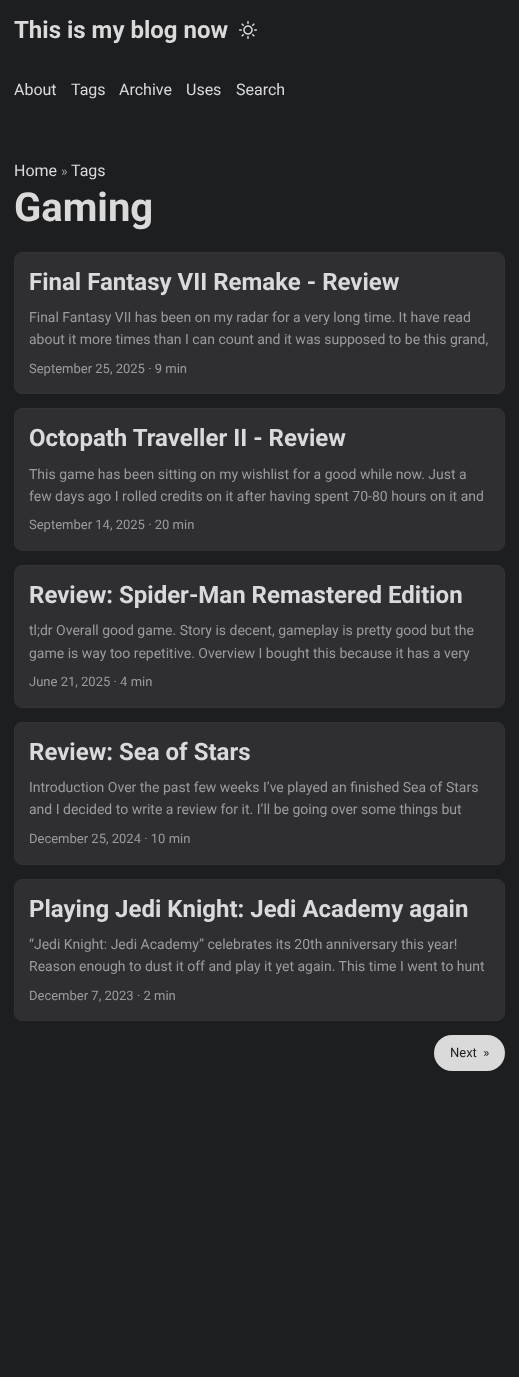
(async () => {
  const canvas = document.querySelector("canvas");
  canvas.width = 519;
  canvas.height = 1377;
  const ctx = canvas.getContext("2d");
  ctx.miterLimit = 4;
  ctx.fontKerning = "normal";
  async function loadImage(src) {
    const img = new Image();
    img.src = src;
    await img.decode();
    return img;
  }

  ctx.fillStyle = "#1d1e20";
  ctx.fillRect(0, 0, 519, 1377);
  ctx.drawImage(await loadImage("img/1.png"), 239, 21, 18, 18);
  ctx.fillStyle = "#2e2e33";
  ctx.beginPath();
  ctx.roundRect(14.5, 252.5, 490, 141, 7.5);
  ctx.fill();
  ctx.strokeStyle = "#333333";
  ctx.stroke();
  ctx.beginPath();
  ctx.roundRect(14.5, 408.5, 490, 142, 7.5);
  ctx.fill();
  ctx.stroke();
  ctx.beginPath();
  ctx.roundRect(14.5, 565.5, 490, 142, 7.5);
  ctx.fill();
  ctx.stroke();
  ctx.beginPath();
  ctx.roundRect(14.5, 722.5, 490, 142, 7.5);
  ctx.fill();
  ctx.stroke();
  ctx.beginPath();
  ctx.roundRect(14.5, 879.5, 490, 141, 7.5);
  ctx.fill();
  ctx.stroke();
  ctx.fillStyle = "#dadadb";
  ctx.beginPath();
  ctx.roundRect(434, 1035, 71, 36, 18);
  ctx.fill();
  ctx.font = "bold 24px Roboto";
  ctx.fillText("This is my blog now", 14, 38);
  ctx.font = "16px Roboto";
  for (const [text, x, y] of [
    ["About", 14, 95],
    ["Tags", 71, 95],
    ["Archive", 119, 95],
    ["Uses", 186, 95],
    ["Search", 236, 95],
    ["Home", 14, 176],
  ]) {
    ctx.fillText(text, x, y);
  }
  ctx.font = "14px Roboto";
  ctx.fillStyle = "#9b9c9d";
  ctx.fillText("»", 61, 176);
  ctx.font = "16px Roboto";
  ctx.fillStyle = "#dadadb";
  ctx.fillText("Tags", 71, 176);
  ctx.font = "bold 40px Roboto";
  ctx.fillText("Gaming", 14, 221);
  ctx.font = "bold 24px Roboto";
  ctx.fillText("Final Fantasy VII Remake - Review", 29, 290);
  ctx.font = "14px Roboto";
  ctx.fillStyle = "#9b9c9d";
  ctx.fillText("Final Fantasy VII has been on my radar for a very long time. It have read", 29, 322);
  ctx.fillText("about it more times than I can count and it was supposed to be this grand,", 29, 344);
  ctx.font = "13px Roboto";
  ctx.fillText("September 25, 2025 · 9 min", 29, 373);
  ctx.font = "bold 24px Roboto";
  ctx.fillStyle = "#dadadb";
  ctx.fillText("Octopath Traveller II - Review", 29, 446);
  ctx.font = "14px Roboto";
  ctx.fillStyle = "#9b9c9d";
  ctx.fillText("This game has been sitting on my wishlist for a good while now. Just a", 29, 479);
  ctx.fillText("few days ago I rolled credits on it after having spent 70-80 hours on it and", 29, 501);
  ctx.font = "13px Roboto";
  ctx.fillText("September 14, 2025 · 20 min", 29, 529);
  ctx.font = "bold 24px Roboto";
  ctx.fillStyle = "#dadadb";
  ctx.fillText("Review: Spider-Man Remastered Edition", 29, 603);
  ctx.font = "14px Roboto";
  ctx.fillStyle = "#9b9c9d";
  ctx.fillText("tl;dr Overall good game. Story is decent, gameplay is pretty good but the", 29, 635);
  ctx.fillText("game is way too repetitive. Overview I bought this because it has a very", 29, 658);
  ctx.font = "13px Roboto";
  ctx.fillText("June 21, 2025 · 4 min", 29, 686);
  ctx.font = "bold 24px Roboto";
  ctx.fillStyle = "#dadadb";
  ctx.fillText("Review: Sea of Stars", 29, 760);
  ctx.font = "14px Roboto";
  ctx.fillStyle = "#9b9c9d";
  ctx.fillText("Introduction Over the past few weeks I’ve played an finished Sea of Stars", 29, 792);
  ctx.fillText("and I decided to write a review for it. I’ll be going over some things but", 29, 814);
  ctx.font = "13px Roboto";
  ctx.fillText("December 25, 2024 · 10 min", 29, 843);
  ctx.font = "bold 24px Roboto";
  ctx.fillStyle = "#dadadb";
  ctx.fillText("Playing Jedi Knight: Jedi Academy again", 29, 917);
  ctx.font = "14px Roboto";
  ctx.fillStyle = "#9b9c9d";
  ctx.fillText("“Jedi Knight: Jedi Academy” celebrates its 20th anniversary this year!", 29, 949);
  ctx.fillText("Reason enough to dust it off and play it yet again. This time I went to hunt", 29, 971);
  ctx.font = "13px Roboto";
  ctx.fillText("December 7, 2023 · 2 min", 29, 1000);
  ctx.fillStyle = "#1d1e20";
  ctx.fillText("Next  »", 450, 1057);
})();
